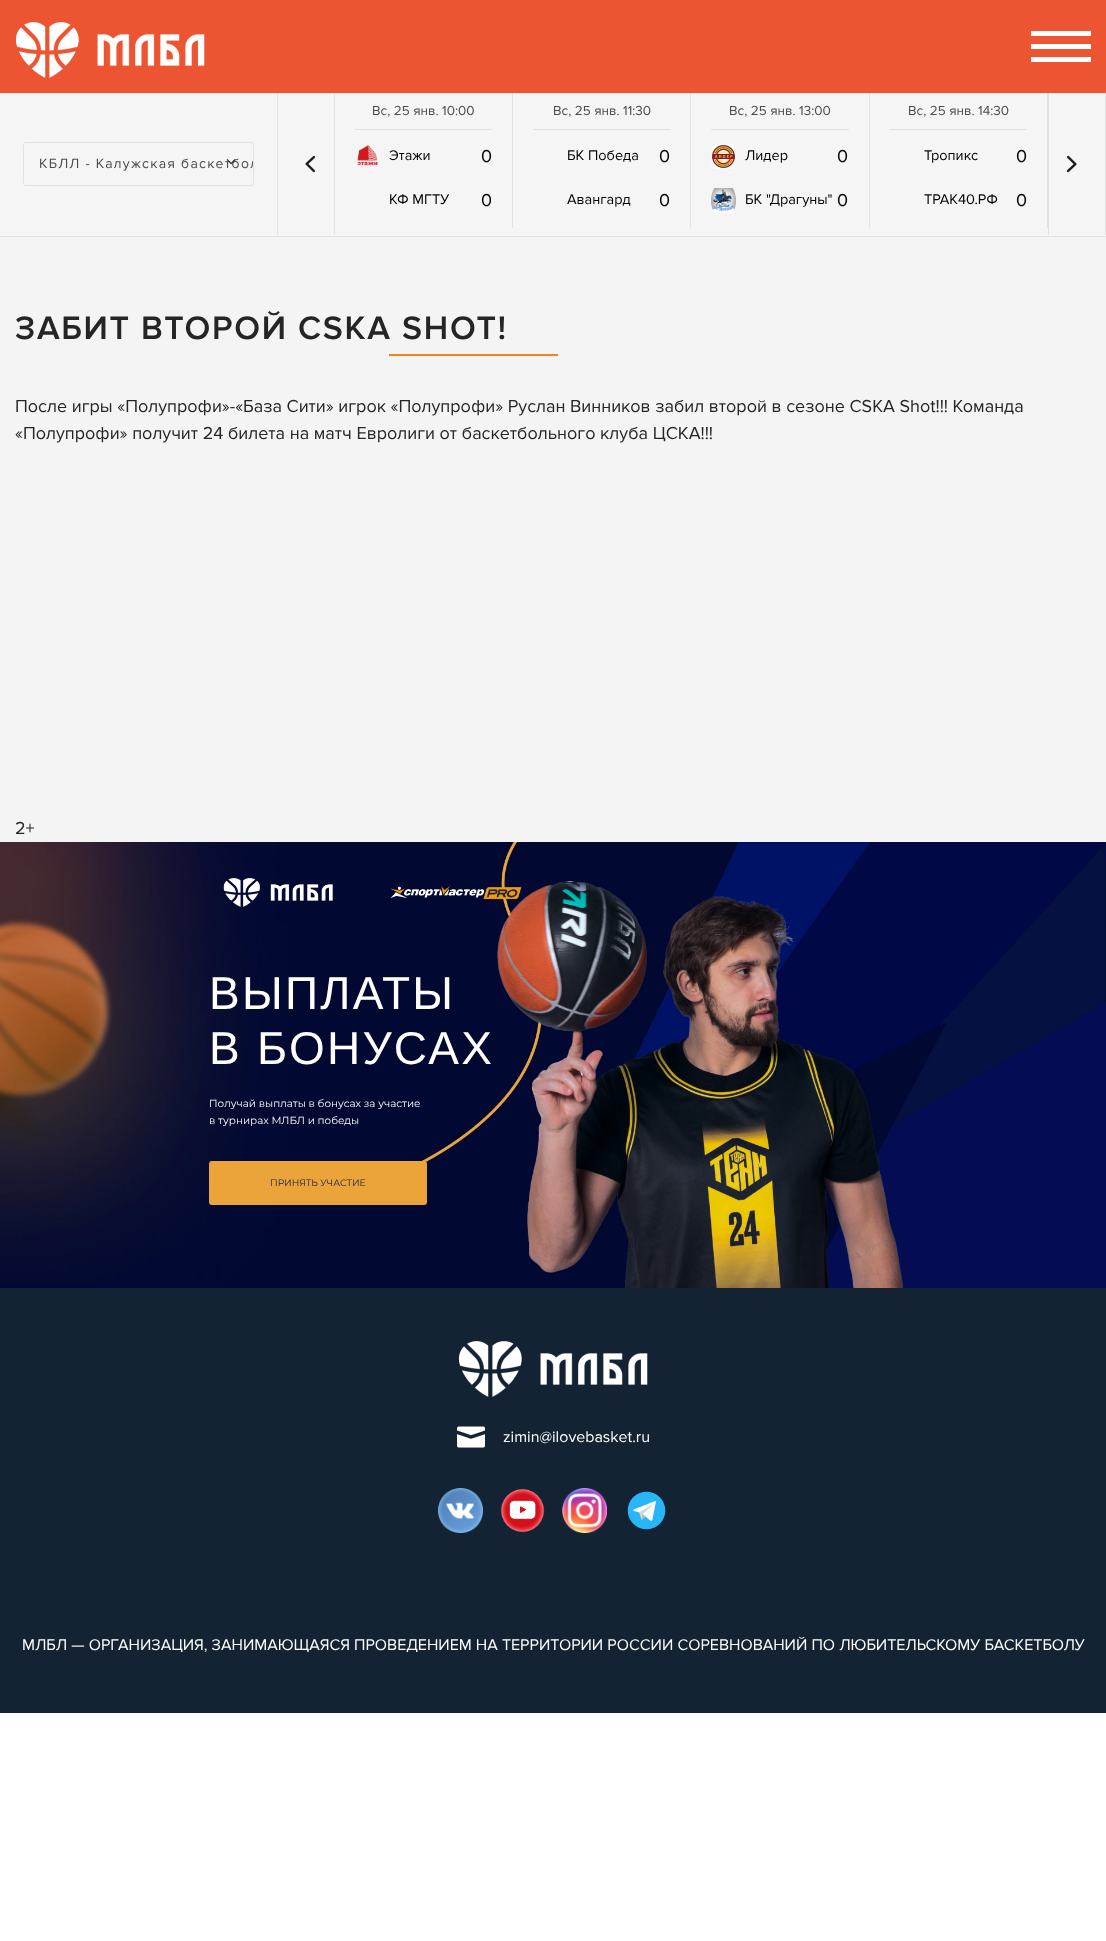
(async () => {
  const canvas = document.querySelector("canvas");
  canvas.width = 1106;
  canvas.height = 1941;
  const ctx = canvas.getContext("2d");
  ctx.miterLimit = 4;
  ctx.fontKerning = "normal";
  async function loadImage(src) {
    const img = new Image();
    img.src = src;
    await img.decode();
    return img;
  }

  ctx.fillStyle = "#ffffff";
  ctx.fillRect(0, 0, 1106, 1941);
  ctx.fillStyle = "#ed5431";
  ctx.fillRect(0, 0, 1106, 93);
  ctx.drawImage(await loadImage("img/1.png"), 15, 22, 190, 56);
  for (const [x, y, w, h, color] of [
    [1031, 31, 60, 5, "#ffffff"],
    [1031, 44, 60, 5, "#ffffff"],
    [1031, 57, 60, 5, "#ffffff"],
    [0, 93, 1106, 143, "#f5f5f6"],
    [0, 236, 1106, 1, "#e3e3e3"],
  ]) {
    ctx.fillStyle = color;
    ctx.fillRect(x, y, w, h);
  }
  ctx.beginPath();
  ctx.roundRect(23.5, 142.5, 230, 43, 2.5);
  ctx.strokeStyle = "#e3e3e3";
  ctx.stroke();
  for (const [x, y, w, h, color] of [
    [1105, 93, 1, 142, "#e3e3e3"],
    [277, 93, 1, 142, "#e3e3e3"],
    [1048, 93, 1, 142, "#e3e3e3"],
    [334, 93, 1, 142, "#e3e3e3"],
  ]) {
    ctx.fillStyle = color;
    ctx.fillRect(x, y, w, h);
  }
  ctx.drawImage(await loadImage("img/3.png"), 305, 155, 11, 18);
  ctx.fillRect(512, 93, 1, 135);
  ctx.fillRect(355, 129, 137, 1);
  ctx.drawImage(await loadImage("img/4.png"), 357, 145, 21, 21);
  for (const [x, y, w, h, color] of [
    [690, 93, 1, 135, "#e3e3e3"],
    [533, 129, 137, 1, "#e3e3e3"],
    [869, 93, 1, 135, "#e3e3e3"],
    [711, 129, 138, 1, "#e3e3e3"],
  ]) {
    ctx.fillStyle = color;
    ctx.fillRect(x, y, w, h);
  }
  ctx.drawImage(await loadImage("img/5.png"), 711, 144, 25, 25);
  ctx.drawImage(await loadImage("img/6.png"), 711, 188, 25, 25);
  ctx.fillRect(1047, 93, 1, 135);
  ctx.fillRect(890, 129, 137, 1);
  ctx.drawImage(await loadImage("img/7.png"), 1066, 155, 11, 18);
  ctx.fillStyle = "#f4f4f4";
  ctx.fillRect(0, 237, 1106, 605);
  ctx.fillStyle = "#f1841f";
  ctx.fillRect(389, 354, 169, 2);
  ctx.drawImage(await loadImage("img/8.png"), 0, 842, 1106, 446);
  ctx.drawImage(await loadImage("img/9.png"), 223, 878, 111, 29);
  ctx.drawImage(await loadImage("img/10.png"), 390, 886, 132, 14);
  ctx.fillStyle = "#eba43a";
  ctx.beginPath();
  ctx.roundRect(209, 1161, 218, 44, 3);
  ctx.fill();
  ctx.fillStyle = "#142333";
  ctx.fillRect(0, 1288, 1106, 425);
  ctx.drawImage(await loadImage("img/11.png"), 458, 1341, 190, 56);
  ctx.drawImage(await loadImage("img/12.png"), 457, 1426, 28, 22);
  ctx.drawImage(await loadImage("img/13.png"), 438, 1488, 45, 45);
  ctx.drawImage(await loadImage("img/14.png"), 500, 1488, 45, 45);
  ctx.drawImage(await loadImage("img/15.png"), 562, 1488, 45, 45);
  ctx.drawImage(await loadImage("img/16.png"), 627, 1491, 39, 39);
  ctx.save();
  ctx.beginPath();
  ctx.roundRect(24, 143, 229, 42, 2);
  ctx.clip();
  ctx.letterSpacing = "1.25px";
  ctx.font = "14px Proxima Nova";
  ctx.fillStyle = "#4c4c4c";
  ctx.fillText("КБЛЛ - Калужская баскетбол", 39, 168);
  ctx.restore();
  ctx.drawImage(await loadImage("img/2.png"), 226, 159, 10, 6);
  ctx.font = "13.5px Proxima Nova";
  ctx.fillStyle = "#4c4c4c";
  ctx.fillText("Вс, 25 янв. 10:00", 372, 115);
  ctx.font = "14.5px Proxima Nova";
  ctx.fillStyle = "#000000";
  ctx.fillText("Этажи", 389, 160);
  ctx.font = "18px Proxima Nova";
  ctx.fillText("0", 481, 162);
  ctx.font = "14.5px Proxima Nova";
  ctx.fillText("КФ МГТУ", 389, 204);
  ctx.font = "18px Proxima Nova";
  ctx.fillText("0", 481, 206);
  ctx.font = "13.5px Proxima Nova";
  ctx.fillStyle = "#4c4c4c";
  ctx.fillText("Вс, 25 янв. 11:30", 553, 115);
  ctx.font = "14.5px Proxima Nova";
  ctx.fillStyle = "#000000";
  ctx.fillText("БК Победа", 567, 160);
  ctx.font = "18px Proxima Nova";
  ctx.fillText("0", 659, 162);
  ctx.font = "14.5px Proxima Nova";
  ctx.fillText("Авангард", 567, 204);
  ctx.font = "18px Proxima Nova";
  ctx.fillText("0", 659, 206);
  ctx.font = "13.5px Proxima Nova";
  ctx.fillStyle = "#4c4c4c";
  ctx.fillText("Вс, 25 янв. 13:00", 729, 115);
  ctx.font = "14.5px Proxima Nova";
  ctx.fillStyle = "#000000";
  ctx.fillText("Лидер", 745, 160);
  ctx.font = "18px Proxima Nova";
  ctx.fillText("0", 837, 162);
  ctx.font = "14.5px Proxima Nova";
  ctx.fillText("БК \"Драгуны\"", 745, 204);
  ctx.font = "18px Proxima Nova";
  ctx.fillText("0", 837, 206);
  ctx.font = "13.5px Proxima Nova";
  ctx.fillStyle = "#4c4c4c";
  ctx.fillText("Вс, 25 янв. 14:30", 908, 115);
  ctx.font = "14.5px Proxima Nova";
  ctx.fillStyle = "#000000";
  ctx.fillText("Тропикс", 924, 160);
  ctx.font = "18px Proxima Nova";
  ctx.fillText("0", 1016, 162);
  ctx.font = "14.5px Proxima Nova";
  ctx.fillText("ТРАК40.РФ", 924, 204);
  ctx.font = "18px Proxima Nova";
  ctx.fillText("0", 1016, 206);
  ctx.letterSpacing = "1.7px";
  ctx.font = "600 33.75px Proxima Nova";
  ctx.fillStyle = "#252525";
  ctx.fillText("ЗАБИТ ВТОРОЙ CSKA SHOT!", 15, 339);
  ctx.letterSpacing = "0px";
  ctx.font = "18px Proxima Nova";
  for (const [text, x, y] of [
    ["После игры «Полупрофи»-«База Сити» игрок «Полупрофи» Руслан Винников забил второй в сезоне CSKA Shot!!! Команда", 15, 412],
    ["«Полупрофи» получит 24 билета на матч Евролиги от баскетбольного клуба ЦСКА!!!", 15, 439],
    ["2+", 15, 834],
  ]) {
    ctx.fillText(text, x, y);
  }
  ctx.letterSpacing = "2.25px";
  ctx.font = "46px Liberation Sans";
  ctx.fillStyle = "#ffffff";
  ctx.fillText("ВЫПЛАТЫ", 209, 1009);
  ctx.fillText("В БОНУСАХ", 209, 1064);
  ctx.letterSpacing = "0px";
  ctx.font = "10.4px Montserrat";
  ctx.fillText("Получай выплаты в бонусах за участие", 209, 1107);
  ctx.fillText("в турнирах МЛБЛ и победы", 209, 1124);
  ctx.font = "9.25px Montserrat";
  ctx.fillStyle = "#121d4b";
  ctx.fillText("ПРИНЯТЬ УЧАСТИЕ", 270, 1186);
  ctx.font = "16px Proxima Nova";
  ctx.fillStyle = "#ffffff";
  ctx.fillText("zimin@ilovebasket.ru", 503, 1442);
  ctx.fillText("МЛБЛ — ОРГАНИЗАЦИЯ, ЗАНИМАЮЩАЯСЯ ПРОВЕДЕНИЕМ НА ТЕРРИТОРИИ РОССИИ СОРЕВНОВАНИЙ ПО ЛЮБИТЕЛЬСКОМУ БАСКЕТБОЛУ", 22, 1650);
})();
